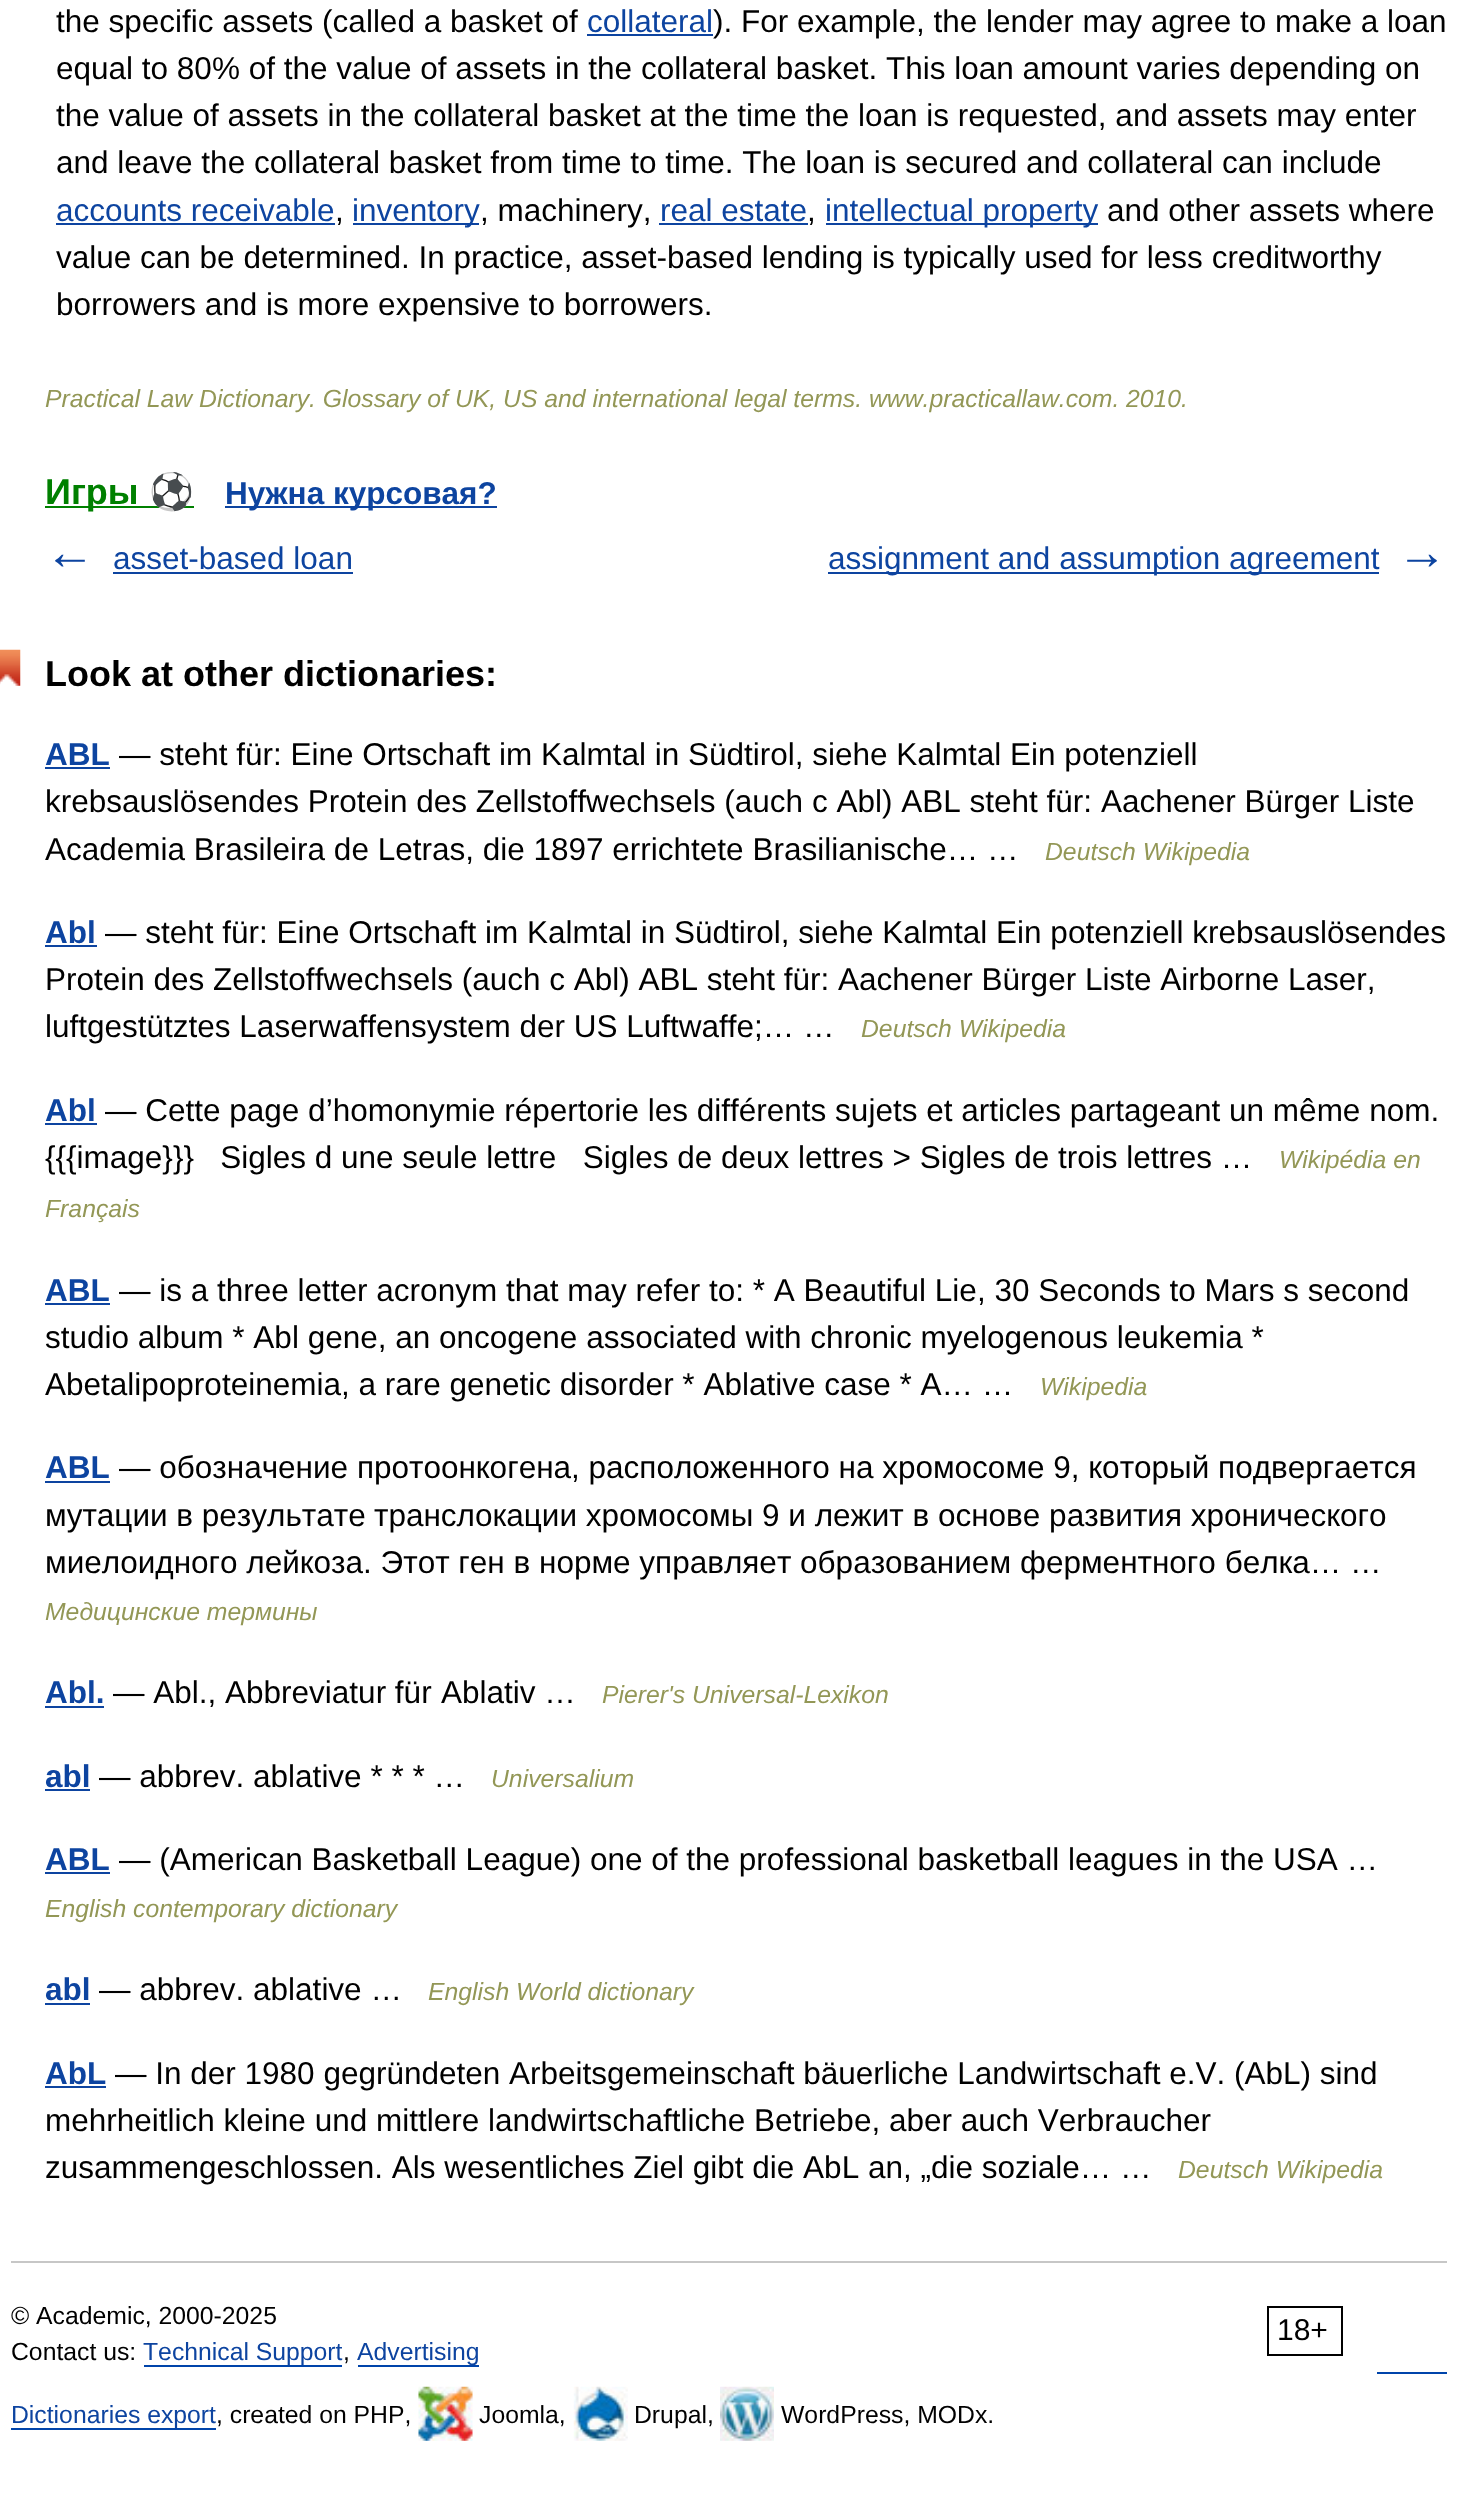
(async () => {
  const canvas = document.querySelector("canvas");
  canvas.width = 1458;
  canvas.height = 2519;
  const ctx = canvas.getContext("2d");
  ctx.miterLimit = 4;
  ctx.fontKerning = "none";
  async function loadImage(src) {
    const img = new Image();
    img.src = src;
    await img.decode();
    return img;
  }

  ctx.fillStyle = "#ffffff";
  ctx.fillRect(0, 0, 1458, 2519);
  for (const [x, y, w, h, color] of [
    [587, 34, 126, 2, "#0d44a0"],
    [56, 223, 279, 2, "#0d44a0"],
    [353, 223, 126, 2, "#0d44a0"],
    [659, 223, 149, 2, "#0d44a0"],
    [826, 223, 272, 2, "#0d44a0"],
    [45, 506, 149, 2, "#008000"],
    [225, 506, 272, 2, "#0d44a0"],
    [113, 572, 240, 2, "#0d44a0"],
    [828, 572, 551, 2, "#0d44a0"],
  ]) {
    ctx.fillStyle = color;
    ctx.fillRect(x, y, w, h);
  }
  ctx.drawImage(await loadImage("img/1.png"), 0, 649, 21, 37);
  for (const [x, y, w, h, color] of [
    [45, 767, 65, 2, "#0d44a0"],
    [45, 945, 52, 2, "#0d44a0"],
    [45, 1123, 52, 2, "#0d44a0"],
    [45, 1303, 65, 2, "#0d44a0"],
    [45, 1481, 65, 2, "#0d44a0"],
    [45, 1706, 59, 2, "#0d44a0"],
    [45, 1789, 45, 2, "#0d44a0"],
    [45, 1872, 65, 2, "#0d44a0"],
    [45, 2003, 45, 2, "#0d44a0"],
    [45, 2086, 61, 2, "#0d44a0"],
    [11, 2261, 1436, 2, "#c7c7c7"],
  ]) {
    ctx.fillStyle = color;
    ctx.fillRect(x, y, w, h);
  }
  ctx.strokeStyle = "#000000";
  ctx.lineWidth = 2;
  ctx.strokeRect(1268, 2307, 74, 48);
  for (const [x, y, w, h, color] of [
    [144, 2365, 198, 2, "#0044aa"],
    [358, 2365, 121, 2, "#0044aa"],
    [1377, 2372, 70, 2, "#0044aa"],
    [11, 2428, 205, 2, "#0044aa"],
  ]) {
    ctx.fillStyle = color;
    ctx.fillRect(x, y, w, h);
  }
  ctx.drawImage(await loadImage("img/2.png"), 418, 2386, 55, 55);
  ctx.drawImage(await loadImage("img/3.png"), 573, 2386, 55, 55);
  ctx.drawImage(await loadImage("img/4.png"), 720, 2386, 54, 55);
  ctx.font = "31.5px Liberation Sans";
  ctx.fillStyle = "#000000";
  ctx.fillText("the specific assets (called a basket of", 56, 32);
  ctx.fillStyle = "#0d44a0";
  ctx.fillText("collateral", 587, 32);
  ctx.fillStyle = "#000000";
  for (const [text, x, y] of [
    ["). For example, the lender may agree to make a loan", 713, 32],
    ["equal to 80% of the value of assets in the collateral basket. This loan amount varies depending on", 56, 79],
    ["the value of assets in the collateral basket at the time the loan is requested, and assets may enter", 56, 126],
    ["and leave the collateral basket from time to time. The loan is secured and collateral can include", 56, 173],
  ]) {
    ctx.fillText(text, x, y);
  }
  ctx.fillStyle = "#0d44a0";
  ctx.fillText("accounts receivable", 56, 221);
  ctx.fillStyle = "#000000";
  ctx.fillText(",", 335, 221);
  ctx.fillStyle = "#0d44a0";
  ctx.fillText("inventory", 352, 221);
  ctx.fillStyle = "#000000";
  ctx.fillText(", machinery,", 480, 221);
  ctx.fillStyle = "#0d44a0";
  ctx.fillText("real estate", 660, 221);
  ctx.fillStyle = "#000000";
  ctx.fillText(",", 807, 221);
  ctx.fillStyle = "#0d44a0";
  ctx.fillText("intellectual property", 825, 221);
  ctx.fillStyle = "#000000";
  for (const [text, x, y] of [
    ["and other assets where", 1107, 221],
    ["value can be determined. In practice, asset-based lending is typically used for less creditworthy", 56, 268],
    ["borrowers and is more expensive to borrowers.", 56, 315],
  ]) {
    ctx.fillText(text, x, y);
  }
  ctx.font = "italic 24.75px Liberation Sans";
  ctx.fillStyle = "#939756";
  ctx.fillText("Practical Law Dictionary. Glossary of UK, US and international legal terms. www.practicallaw.com.", 45, 407);
  ctx.fillText("2010.", 1126, 407);
  ctx.font = "bold 36px Liberation Sans";
  ctx.fillStyle = "#008000";
  ctx.fillText("Игры", 45, 504);
  ctx.font = "bold 36px Noto Color Emoji";
  ctx.fillText("⚽", 149, 504);
  ctx.font = "bold 31.5px Liberation Sans";
  ctx.fillStyle = "#0d44a0";
  ctx.fillText("Нужна курсовая?", 225, 504);
  ctx.font = "bold 50px Liberation Sans";
  ctx.fillText("←", 45, 569);
  ctx.font = "31.5px Liberation Sans";
  ctx.fillText("asset-based loan", 113, 569);
  ctx.fillText("assignment and assumption agreement", 828, 569);
  ctx.font = "bold 50px Liberation Sans";
  ctx.fillText("→", 1397, 569);
  ctx.font = "bold 36px Liberation Sans";
  ctx.fillStyle = "#000000";
  ctx.fillText("Look at other dictionaries:", 45, 686);
  ctx.font = "bold 31.5px Liberation Sans";
  ctx.fillStyle = "#0d44a0";
  ctx.fillText("ABL", 45, 765);
  ctx.font = "31.5px Liberation Sans";
  ctx.fillStyle = "#000000";
  for (const [text, x, y] of [
    ["— steht für: Eine Ortschaft im Kalmtal in Südtirol, siehe Kalmtal Ein potenziell", 119, 765],
    ["krebsauslösendes Protein des Zellstoffwechsels (auch c Abl) ABL steht für:", 45, 812],
    ["Aachener Bürger Liste", 1101, 812],
    ["Academia Brasileira de Letras, die 1897 errichtete Brasilianische… …", 45, 860],
  ]) {
    ctx.fillText(text, x, y);
  }
  ctx.font = "italic 24.75px Liberation Sans";
  ctx.fillStyle = "#939756";
  ctx.fillText("Deutsch Wikipedia", 1045, 860);
  ctx.font = "bold 31.5px Liberation Sans";
  ctx.fillStyle = "#0d44a0";
  ctx.fillText("Abl", 45, 943);
  ctx.font = "31.5px Liberation Sans";
  ctx.fillStyle = "#000000";
  for (const [text, x, y] of [
    ["— steht für: Eine Ortschaft im Kalmtal in Südtirol, siehe Kalmtal Ein potenziell krebsauslösendes", 105, 943],
    ["Protein des Zellstoffwechsels (auch c Abl) ABL steht für:", 45, 990],
    ["Aachener Bürger Liste Airborne Laser,", 838, 990],
    ["luftgestütztes Laserwaffensystem der US Luftwaffe;… …", 45, 1037],
  ]) {
    ctx.fillText(text, x, y);
  }
  ctx.font = "italic 24.75px Liberation Sans";
  ctx.fillStyle = "#939756";
  ctx.fillText("Deutsch Wikipedia", 861, 1037);
  ctx.font = "bold 31.5px Liberation Sans";
  ctx.fillStyle = "#0d44a0";
  ctx.fillText("Abl", 45, 1121);
  ctx.font = "31.5px Liberation Sans";
  ctx.fillStyle = "#000000";
  ctx.fillText("— Cette page d’homonymie répertorie les différents sujets et articles partageant un même nom.", 105, 1121);
  ctx.fillText("{{{image}}}   Sigles d une seule lettre   Sigles de deux lettres > Sigles de trois lettres …", 45, 1168);
  ctx.font = "italic 24.75px Liberation Sans";
  ctx.fillStyle = "#939756";
  ctx.fillText("Wikipédia en", 1279, 1168);
  ctx.fillText("Français", 45, 1217);
  ctx.font = "bold 31.5px Liberation Sans";
  ctx.fillStyle = "#0d44a0";
  ctx.fillText("ABL", 45, 1301);
  ctx.font = "31.5px Liberation Sans";
  ctx.fillStyle = "#000000";
  for (const [text, x, y] of [
    ["— is a three letter acronym that may refer to: * A Beautiful Lie, 30 Seconds to Mars s second", 119, 1301],
    ["studio album * Abl gene, an oncogene associated with chronic myelogenous leukemia *", 45, 1348],
    ["Abetalipoproteinemia, a rare genetic disorder * Ablative case * A… …", 45, 1395],
  ]) {
    ctx.fillText(text, x, y);
  }
  ctx.font = "italic 24.75px Liberation Sans";
  ctx.fillStyle = "#939756";
  ctx.fillText("Wikipedia", 1040, 1395);
  ctx.font = "bold 31.5px Liberation Sans";
  ctx.fillStyle = "#0d44a0";
  ctx.fillText("ABL", 45, 1478);
  ctx.font = "31.5px Liberation Sans";
  ctx.fillStyle = "#000000";
  for (const [text, x, y] of [
    ["— обозначение протоонкогена, расположенного на хромосоме 9, который подвергается", 119, 1478],
    ["мутации в результате", 45, 1526],
    ["транслокации хромосомы 9 и лежит в основе развития хронического", 374, 1526],
    ["миелоидного лейкоза. Этот ген в норме управляет образованием", 45, 1573],
    ["ферментного белка… …", 1020, 1573],
  ]) {
    ctx.fillText(text, x, y);
  }
  ctx.font = "italic 24.75px Liberation Sans";
  ctx.fillStyle = "#939756";
  ctx.fillText("Медицинские термины", 45, 1620);
  ctx.font = "bold 31.5px Liberation Sans";
  ctx.fillStyle = "#0d44a0";
  ctx.fillText("Abl.", 45, 1703);
  ctx.font = "31.5px Liberation Sans";
  ctx.fillStyle = "#000000";
  ctx.fillText("— Abl., Abbreviatur für", 113, 1703);
  ctx.fillText("Ablativ …", 441, 1703);
  ctx.font = "italic 24.75px Liberation Sans";
  ctx.fillStyle = "#939756";
  ctx.fillText("Pierer's Universal-Lexikon", 602, 1703);
  ctx.font = "bold 31.5px Liberation Sans";
  ctx.fillStyle = "#0d44a0";
  ctx.fillText("abl", 45, 1787);
  ctx.font = "31.5px Liberation Sans";
  ctx.fillStyle = "#000000";
  ctx.fillText("— abbrev. ablative * * * …", 99, 1787);
  ctx.font = "italic 24.75px Liberation Sans";
  ctx.fillStyle = "#939756";
  ctx.fillText("Universalium", 491, 1787);
  ctx.font = "bold 31.5px Liberation Sans";
  ctx.fillStyle = "#0d44a0";
  ctx.fillText("ABL", 45, 1870);
  ctx.font = "31.5px Liberation Sans";
  ctx.fillStyle = "#000000";
  ctx.fillText("— (American Basketball League) one of the professional basketball leagues in the USA …", 119, 1870);
  ctx.font = "italic 24.75px Liberation Sans";
  ctx.fillStyle = "#939756";
  ctx.fillText("English contemporary dictionary", 45, 1917);
  ctx.font = "bold 31.5px Liberation Sans";
  ctx.fillStyle = "#0d44a0";
  ctx.fillText("abl", 45, 2000);
  ctx.font = "31.5px Liberation Sans";
  ctx.fillStyle = "#000000";
  ctx.fillText("— abbrev. ablative …", 99, 2000);
  ctx.font = "italic 24.75px Liberation Sans";
  ctx.fillStyle = "#939756";
  ctx.fillText("English World dictionary", 428, 2000);
  ctx.font = "bold 31.5px Liberation Sans";
  ctx.fillStyle = "#0d44a0";
  ctx.fillText("AbL", 45, 2084);
  ctx.font = "31.5px Liberation Sans";
  ctx.fillStyle = "#000000";
  for (const [text, x, y] of [
    ["— In der 1980 gegründeten Arbeitsgemeinschaft bäuerliche Landwirtschaft e.V. (AbL) sind", 115, 2084],
    ["mehrheitlich kleine und mittlere landwirtschaftliche Betriebe, aber auch Verbraucher", 45, 2131],
    ["zusammengeschlossen. Als wesentliches Ziel gibt die AbL an, „die soziale… …", 45, 2178],
  ]) {
    ctx.fillText(text, x, y);
  }
  ctx.font = "italic 24.75px Liberation Sans";
  ctx.fillStyle = "#939756";
  ctx.fillText("Deutsch Wikipedia", 1178, 2178);
  ctx.font = "24.75px Liberation Sans";
  ctx.fillStyle = "#000000";
  ctx.fillText("© Academic, 2000-2025", 11, 2324);
  ctx.font = "30px Liberation Sans";
  ctx.fillText("18+", 1277, 2340);
  ctx.font = "24.75px Liberation Sans";
  ctx.fillText("Contact us:", 11, 2360);
  ctx.fillStyle = "#0d44a0";
  ctx.fillText("Technical Support", 143, 2360);
  ctx.fillStyle = "#000000";
  ctx.fillText(",", 343, 2360);
  ctx.fillStyle = "#0d44a0";
  ctx.fillText("Advertising", 357, 2360);
  ctx.fillText("Dictionaries export", 11, 2423);
  ctx.fillStyle = "#000000";
  for (const [text, x, y] of [
    [", created on PHP,", 216, 2423],
    ["Joomla,", 479, 2423],
    ["Drupal,", 634, 2423],
    ["WordPress, MODx.", 781, 2423],
  ]) {
    ctx.fillText(text, x, y);
  }
})();
